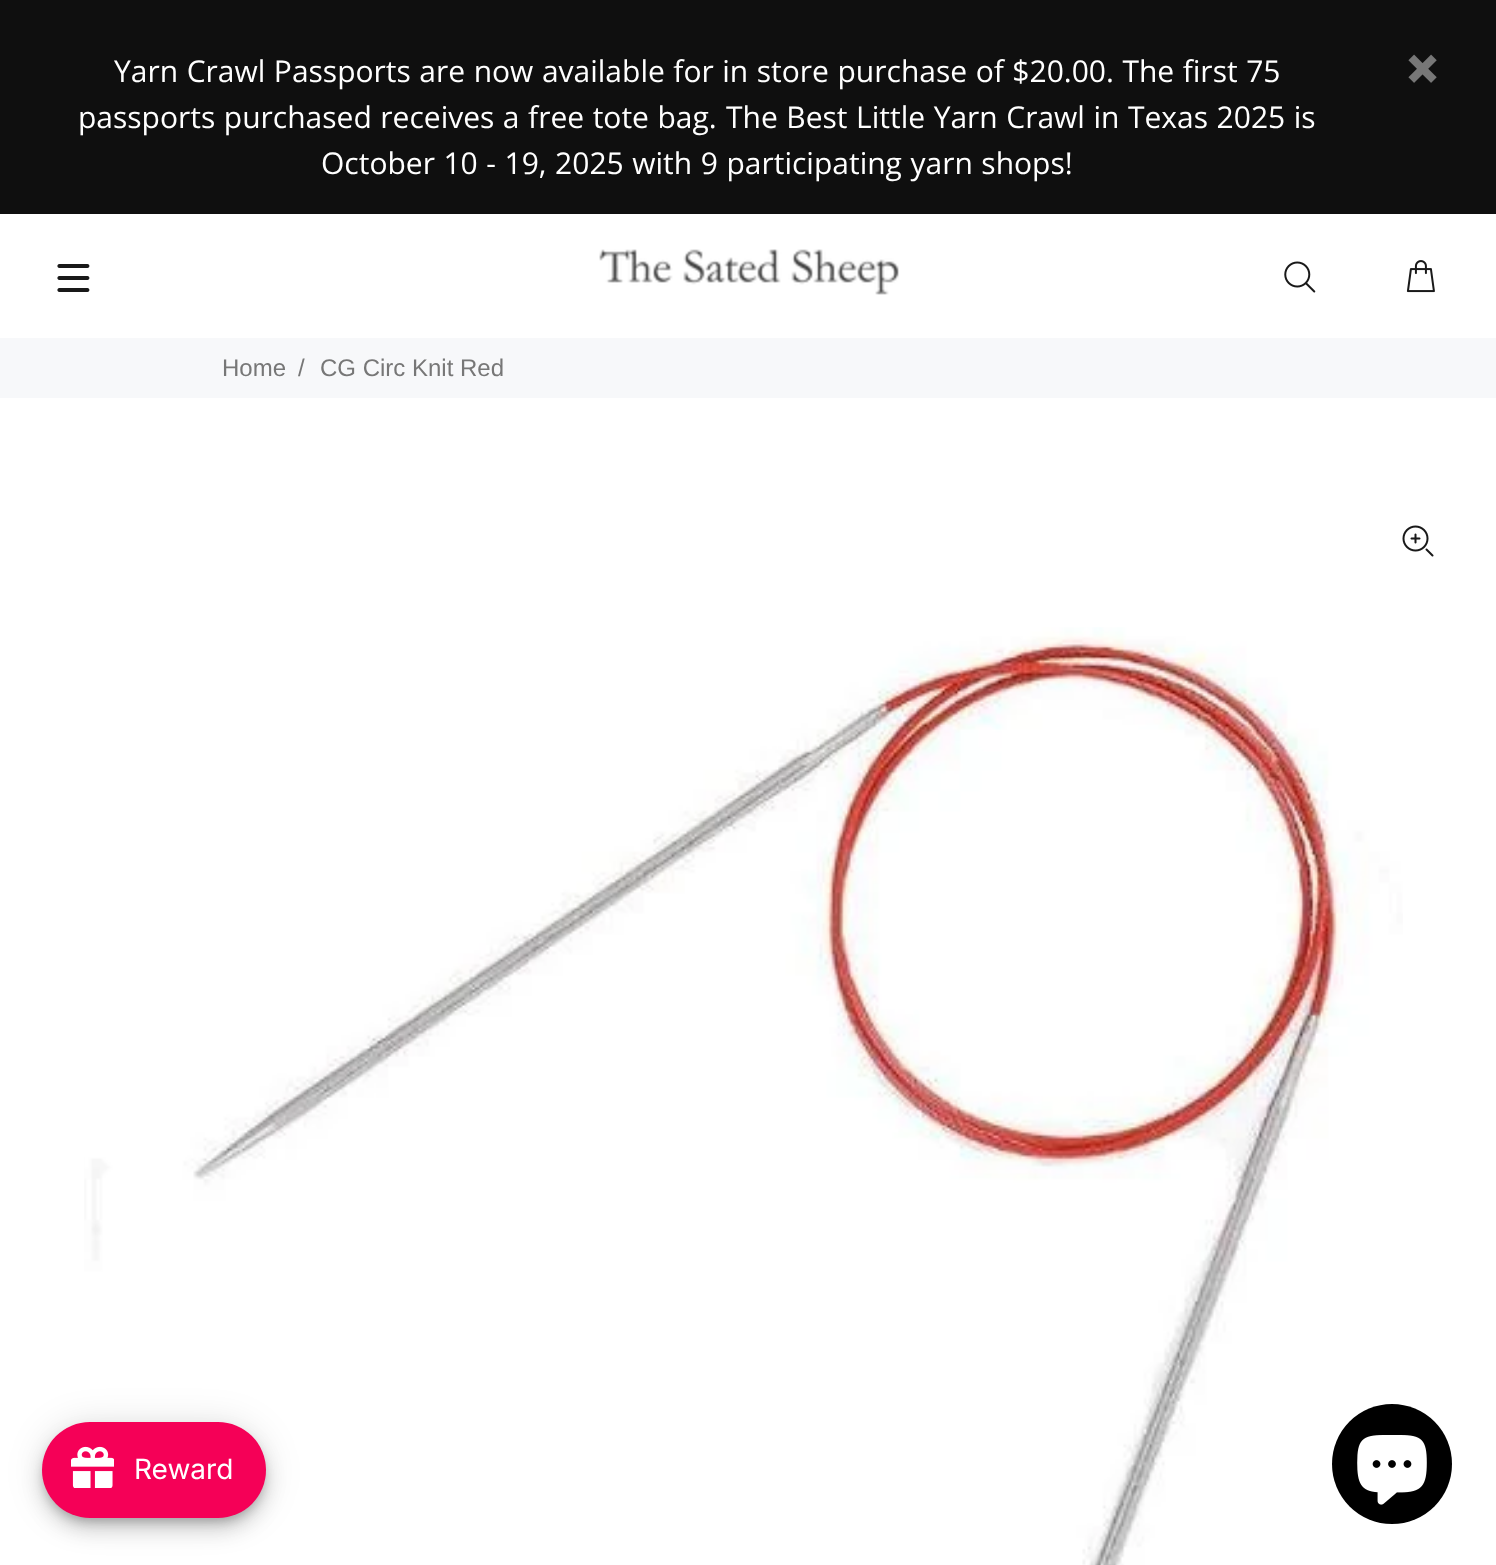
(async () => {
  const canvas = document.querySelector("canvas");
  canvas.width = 1496;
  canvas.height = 1565;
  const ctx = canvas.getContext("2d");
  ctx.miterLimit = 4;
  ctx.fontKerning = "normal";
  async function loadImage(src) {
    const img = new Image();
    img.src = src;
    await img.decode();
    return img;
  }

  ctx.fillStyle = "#ffffff";
  ctx.fillRect(0, 0, 1496, 1565);
  ctx.fillStyle = "#0f0f0f";
  ctx.fillRect(0, 0, 1496, 214);
  ctx.drawImage(await loadImage("img/1.png"), 1408, 54, 29, 29);
  ctx.drawImage(await loadImage("img/2.png"), 57, 264, 33, 28);
  ctx.drawImage(await loadImage("img/3.png"), 599, 249, 300, 46);
  ctx.drawImage(await loadImage("img/4.png"), 1284, 261, 32, 32);
  ctx.drawImage(await loadImage("img/5.png"), 1406, 260, 29, 33);
  ctx.fillStyle = "#f7f8fa";
  ctx.fillRect(0, 338, 1496, 60);
  ctx.drawImage(await loadImage("img/6.png"), 1402, 525, 32, 32);
  ctx.drawImage(await loadImage("img/7.png"), 84, 627, 1319, 938);
  ctx.fillStyle = "rgba(0, 0, 0, 0.12)";
  ctx.filter = "blur(18px)";
  ctx.beginPath();
  ctx.roundRect(42, 1424, 224, 96, 48);
  ctx.fill();
  ctx.filter = "none";
  ctx.fillStyle = "rgba(0, 0, 0, 0.14)";
  ctx.filter = "blur(10px)";
  ctx.beginPath();
  ctx.roundRect(42, 1434, 224, 96, 48);
  ctx.fill();
  ctx.filter = "none";
  ctx.fillStyle = "rgba(0, 0, 0, 0.2)";
  ctx.filter = "blur(5px)";
  ctx.beginPath();
  ctx.roundRect(44, 1430, 220, 92, 46);
  ctx.fill();
  ctx.filter = "none";
  ctx.fillStyle = "#f50057";
  ctx.beginPath();
  ctx.roundRect(42, 1422, 224, 96, 48);
  ctx.fill();
  ctx.drawImage(await loadImage("img/8.png"), 71, 1446, 43, 42);
  ctx.fillStyle = "#000000";
  ctx.beginPath();
  ctx.arc(1392, 1464, 60, 0, Math.PI * 2);
  ctx.fill();
  ctx.drawImage(await loadImage("img/9.png"), 1357, 1435, 70, 70);
  ctx.wordSpacing = "0.75px";
  ctx.font = "30px Open Sans";
  ctx.fillStyle = "#ffffff";
  for (const [text, x, y] of [
    ["Yarn Crawl Passports are now available for in store purchase of $20.00. The first 75", 114, 82],
    ["passports purchased receives a free tote bag.", 78, 128],
    ["The Best Little Yarn Crawl in Texas 2025 is", 726, 128],
    ["October 10 - 19, 2025 with 9 participating yarn shops!", 321, 174],
  ]) {
    ctx.fillText(text, x, y);
  }
  ctx.wordSpacing = "0px";
  ctx.font = "24px Liberation Sans";
  ctx.fillStyle = "#777777";
  for (const [text, x, y] of [
    ["Home", 222, 376],
    ["/", 298, 376],
    ["CG Circ Knit Red", 320, 376],
  ]) {
    ctx.fillText(text, x, y);
  }
  ctx.font = "28px Inter";
  ctx.fillStyle = "#ffffff";
  ctx.fillText("Reward", 134, 1479);
})();
